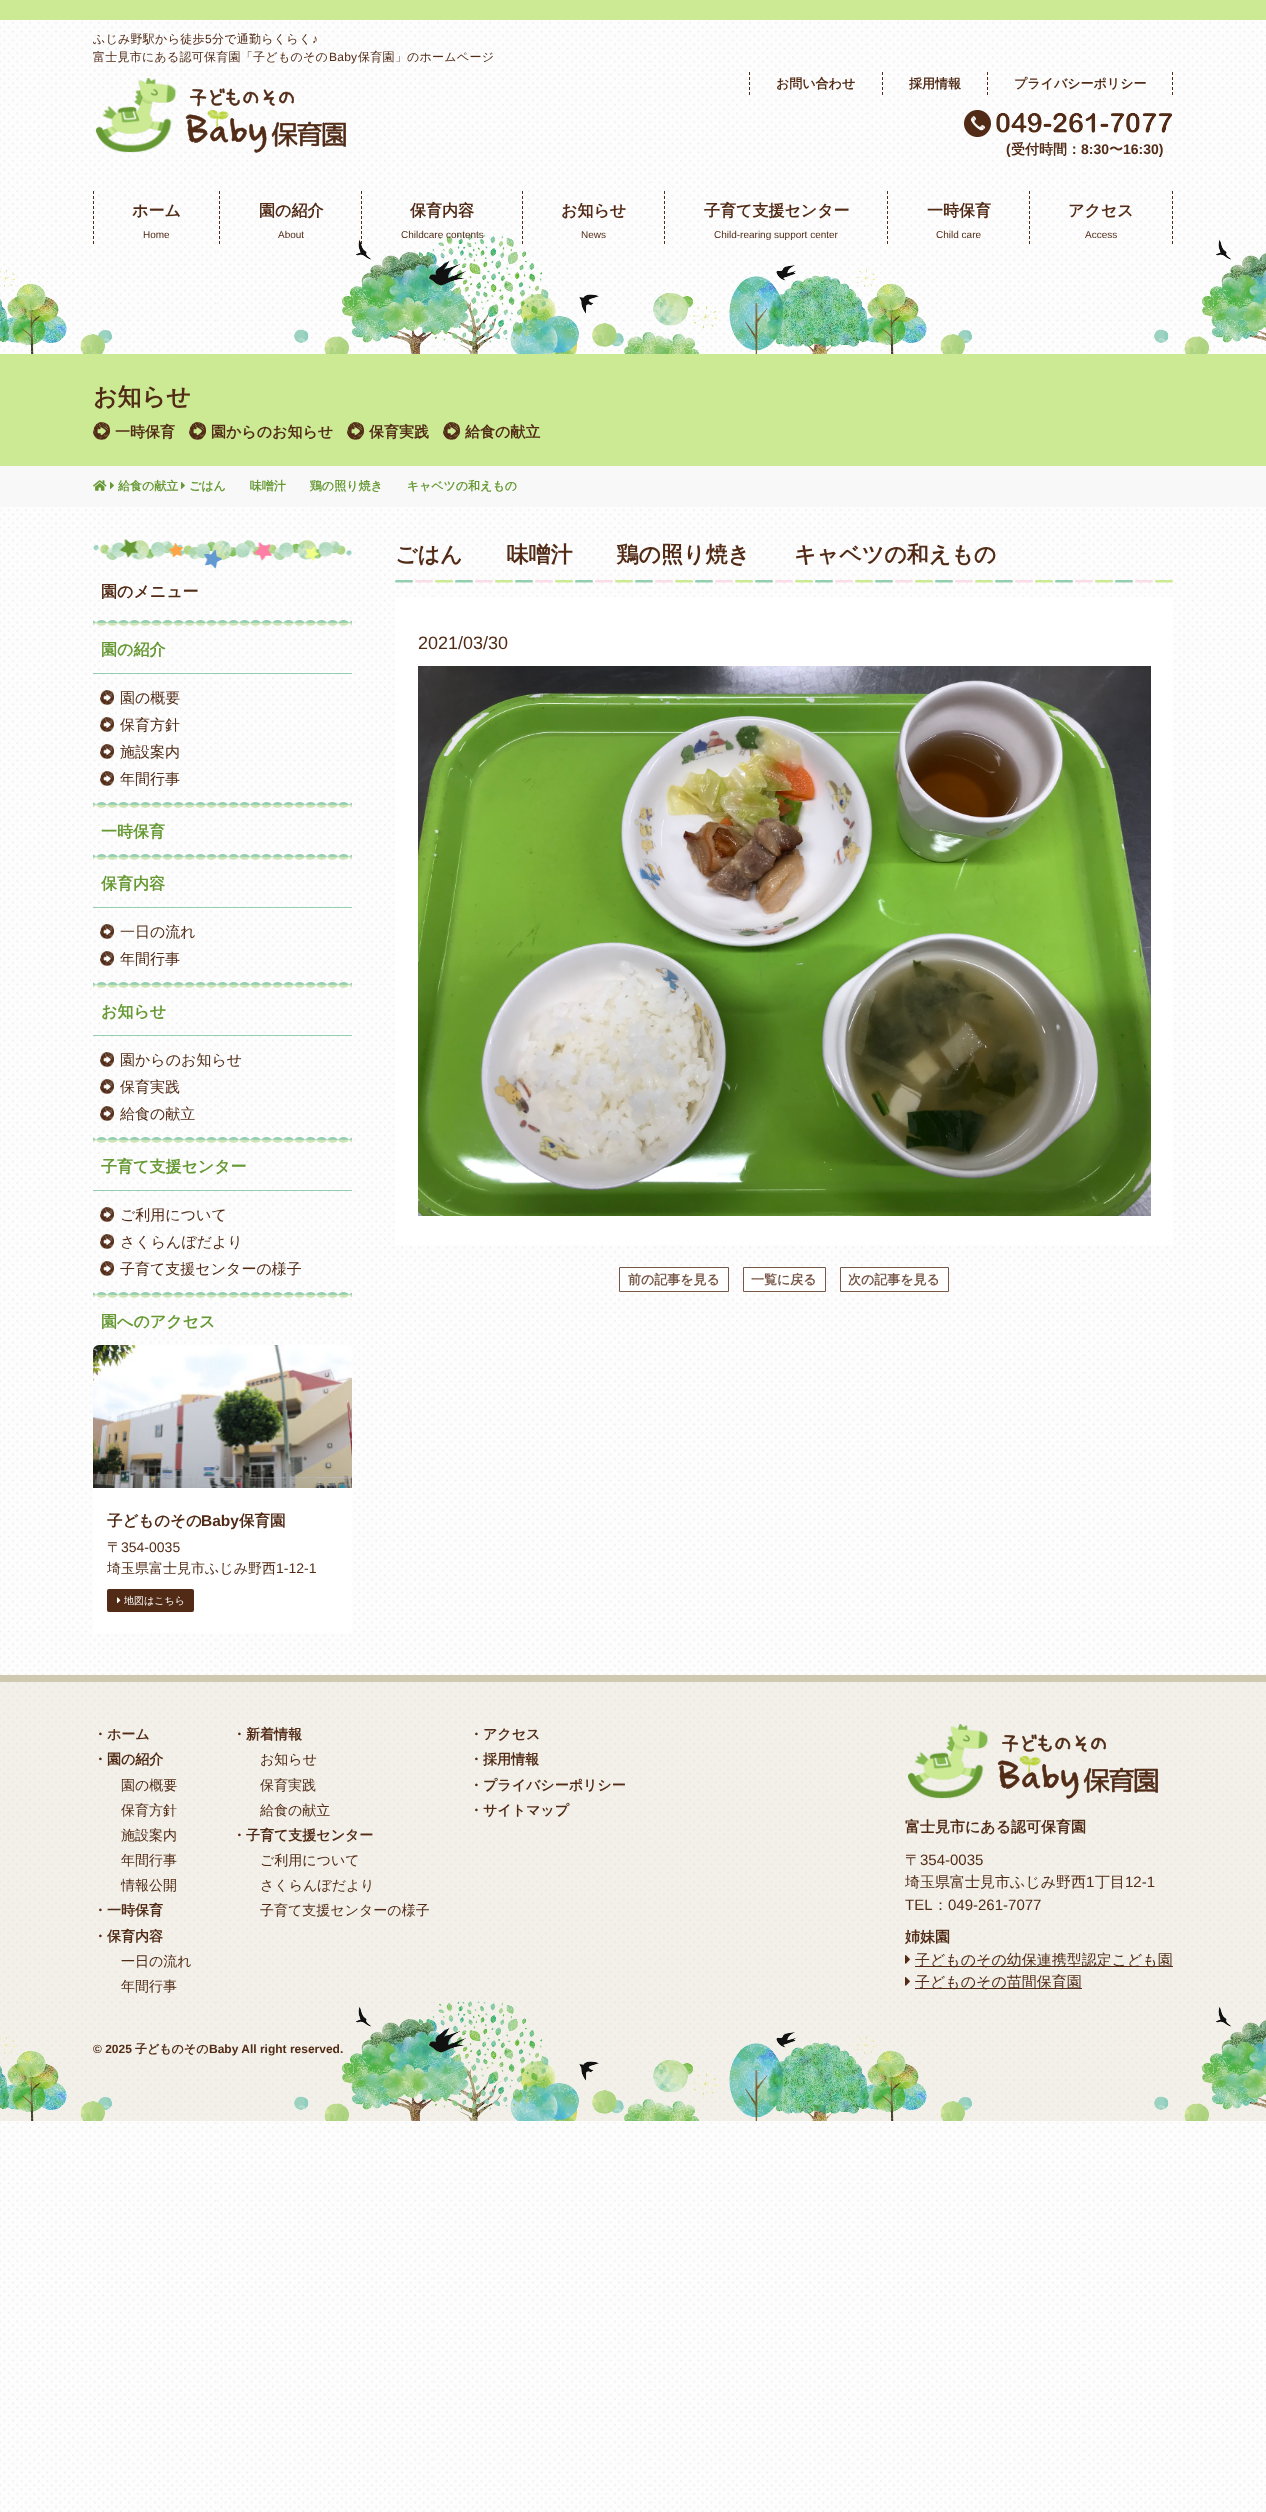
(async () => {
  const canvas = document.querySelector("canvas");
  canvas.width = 1266;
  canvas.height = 2512;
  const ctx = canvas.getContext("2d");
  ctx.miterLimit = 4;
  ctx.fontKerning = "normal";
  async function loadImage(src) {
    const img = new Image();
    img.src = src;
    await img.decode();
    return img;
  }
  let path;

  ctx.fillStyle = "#ffffff";
  ctx.fillRect(0, 0, 1266, 2512);
  ctx.drawImage(await loadImage("img/1.png"), 0, 20, 1266, 2492);
  ctx.drawImage(await loadImage("img/2.png"), 0, 234, 1266, 120);
  ctx.fillStyle = "#cbea93";
  ctx.fillRect(0, 0, 1266, 20);
  ctx.drawImage(await loadImage("img/3.png"), 96, 78, 250, 75);
  path = new Path2D("M882.5 72V95");
  ctx.strokeStyle = "#512b16";
  ctx.setLineDash([3, 2]);
  ctx.stroke(path);
  path = new Path2D("M749.5 72V95");
  ctx.stroke(path);
  path = new Path2D("M987.5 72V95");
  ctx.stroke(path);
  path = new Path2D("M1172.5 72V95");
  ctx.stroke(path);
  ctx.drawImage(await loadImage("img/4.png"), 964, 110, 27, 27);
  ctx.drawImage(await loadImage("img/5.png"), 996, 112, 177, 21);
  path = new Path2D("M219.5 191V244");
  ctx.stroke(path);
  path = new Path2D("M93.5 191V244");
  ctx.stroke(path);
  path = new Path2D("M361.5 191V244");
  ctx.stroke(path);
  path = new Path2D("M522.5 191V244");
  ctx.stroke(path);
  path = new Path2D("M664.5 191V244");
  ctx.stroke(path);
  path = new Path2D("M887.5 191V244");
  ctx.stroke(path);
  path = new Path2D("M1029.5 191V244");
  ctx.stroke(path);
  path = new Path2D("M1172.5 191V244");
  ctx.stroke(path);
  ctx.fillRect(0, 354, 1266, 112);
  ctx.drawImage(await loadImage("img/6.png"), 93, 422, 17, 18);
  ctx.drawImage(await loadImage("img/6.png"), 189, 422, 17, 18);
  ctx.drawImage(await loadImage("img/6.png"), 347, 422, 17, 18);
  ctx.drawImage(await loadImage("img/6.png"), 443, 422, 17, 18);
  ctx.fillStyle = "#f8f8f8";
  ctx.fillRect(0, 466, 1266, 41);
  ctx.drawImage(await loadImage("img/7.png"), 93, 480, 14, 11);
  ctx.drawImage(await loadImage("img/8.png"), 110, 482, 4, 7);
  ctx.drawImage(await loadImage("img/8.png"), 181, 482, 4, 7);
  ctx.drawImage(await loadImage("img/9.png"), 93, 539, 259, 30);
  ctx.drawImage(await loadImage("img/10.png"), 93, 620, 259, 6);
  ctx.fillStyle = "#93ceb1";
  ctx.fillRect(93, 673, 259, 1);
  ctx.drawImage(await loadImage("img/11.png"), 100, 690, 14, 15);
  ctx.drawImage(await loadImage("img/12.png"), 100, 717, 14, 15);
  ctx.drawImage(await loadImage("img/13.png"), 100, 744, 14, 15);
  ctx.drawImage(await loadImage("img/14.png"), 100, 771, 14, 15);
  ctx.drawImage(await loadImage("img/15.png"), 93, 802, 259, 6);
  ctx.drawImage(await loadImage("img/16.png"), 93, 854, 259, 6);
  ctx.fillRect(93, 907, 259, 1);
  ctx.drawImage(await loadImage("img/12.png"), 100, 924, 14, 15);
  ctx.drawImage(await loadImage("img/13.png"), 100, 951, 14, 15);
  ctx.drawImage(await loadImage("img/17.png"), 93, 982, 259, 6);
  ctx.fillRect(93, 1035, 259, 1);
  ctx.drawImage(await loadImage("img/18.png"), 100, 1052, 14, 15);
  ctx.drawImage(await loadImage("img/19.png"), 100, 1079, 14, 15);
  ctx.drawImage(await loadImage("img/20.png"), 100, 1106, 14, 15);
  ctx.drawImage(await loadImage("img/21.png"), 93, 1137, 259, 6);
  ctx.fillRect(93, 1190, 259, 1);
  ctx.drawImage(await loadImage("img/22.png"), 100, 1207, 14, 15);
  ctx.drawImage(await loadImage("img/23.png"), 100, 1234, 14, 15);
  ctx.drawImage(await loadImage("img/24.png"), 100, 1261, 14, 15);
  ctx.drawImage(await loadImage("img/25.png"), 93, 1292, 259, 6);
  ctx.fillStyle = "#ffffff";
  ctx.beginPath();
  ctx.roundRect(93, 1345, 259, 288, [6, 6, 0, 0]);
  ctx.fill();
  ctx.drawImage(await loadImage("img/26.png"), 93, 1345, 259, 143);
  ctx.fillStyle = "#512b16";
  ctx.beginPath();
  ctx.roundRect(107, 1589, 87, 23, 2);
  ctx.fill();
  ctx.drawImage(await loadImage("img/27.png"), 117, 1597, 4, 7);
  ctx.drawImage(await loadImage("img/28.png"), 395, 580, 778, 3);
  ctx.fillStyle = "#ffffff";
  ctx.fillRect(395, 597, 778, 648);
  ctx.drawImage(await loadImage("img/29.png"), 418, 666, 733, 550);
  ctx.beginPath();
  ctx.rect(619.5, 1267.5, 109, 24);
  ctx.fill();
  ctx.strokeStyle = "#775848";
  ctx.setLineDash([]);
  ctx.stroke();
  ctx.beginPath();
  ctx.rect(743.5, 1267.5, 82, 24);
  ctx.fill();
  ctx.stroke();
  ctx.beginPath();
  ctx.rect(840.5, 1267.5, 108, 24);
  ctx.fill();
  ctx.stroke();
  ctx.fillStyle = "rgba(228, 224, 207, 0.45)";
  ctx.fillRect(0, 1682, 1266, 439);
  ctx.drawImage(await loadImage("img/30.png"), 0, 2001, 1266, 120);
  ctx.fillStyle = "#d0c9b1";
  ctx.fillRect(0, 1675, 1266, 7);
  ctx.drawImage(await loadImage("img/31.png"), 908, 1724, 250, 75);
  ctx.drawImage(await loadImage("img/32.png"), 905, 1955, 5, 9);
  ctx.fillStyle = "#512b16";
  ctx.fillRect(915, 1966, 258, 1);
  ctx.drawImage(await loadImage("img/33.png"), 905, 1977, 5, 9);
  ctx.fillRect(915, 1988, 167, 1);
  ctx.letterSpacing = "0.25px";
  ctx.font = "500 12px WenQuanYi Zen Hei";
  ctx.fillText("ふじみ野駅から徒歩", 93, 43);
  ctx.font = "12px Liberation Sans";
  ctx.fillText("5", 205, 43);
  ctx.font = "500 12px WenQuanYi Zen Hei";
  ctx.fillText("分で通勤らくらく", 212, 43);
  ctx.font = "12px Liberation Sans";
  ctx.fillText("♪", 312, 43);
  ctx.font = "500 12px WenQuanYi Zen Hei";
  ctx.fillText("富士見市にある認可保育園「子どものその", 93, 61);
  ctx.font = "12px Liberation Sans";
  ctx.fillText("Baby", 329, 61);
  ctx.font = "500 12px WenQuanYi Zen Hei";
  ctx.fillText("保育園」のホームページ", 358, 61);
  ctx.letterSpacing = "0px";
  ctx.font = "bold 13px WenQuanYi Zen Hei";
  for (const [text, x, y] of [
    ["お問い合わせ", 776, 88],
    ["採用情報", 909, 88],
    ["プライバシーポリシー", 1014, 88],
  ]) {
    ctx.fillText(text, x, y);
  }
  ctx.font = "bold 14px Liberation Sans";
  ctx.fillText("(", 1006, 154);
  ctx.font = "bold 14px WenQuanYi Zen Hei";
  ctx.fillText("受付時間：", 1011, 154);
  ctx.font = "bold 14px Liberation Sans";
  ctx.fillText("8:30", 1081, 154);
  ctx.font = "bold 14px WenQuanYi Zen Hei";
  ctx.fillText("〜", 1109, 154);
  ctx.font = "bold 14px Liberation Sans";
  ctx.fillText("16:30)", 1123, 154);
  ctx.font = "bold 16px WenQuanYi Zen Hei";
  ctx.fillText("ホーム", 132, 216);
  ctx.font = "10px Liberation Sans";
  ctx.fillText("Home", 143, 238);
  ctx.font = "bold 16px WenQuanYi Zen Hei";
  ctx.fillText("園の紹介", 259, 216);
  ctx.font = "10px Liberation Sans";
  ctx.fillText("About", 278, 238);
  ctx.font = "bold 16px WenQuanYi Zen Hei";
  ctx.fillText("保育内容", 410, 216);
  ctx.font = "10px Liberation Sans";
  ctx.fillText("Childcare contents", 401, 238);
  ctx.font = "bold 16px WenQuanYi Zen Hei";
  ctx.fillText("お知らせ", 561, 216);
  ctx.font = "10px Liberation Sans";
  ctx.fillText("News", 581, 238);
  ctx.font = "bold 16px WenQuanYi Zen Hei";
  ctx.fillText("子育て支援センター", 704, 216);
  ctx.font = "10px Liberation Sans";
  ctx.fillText("Child-rearing support center", 714, 238);
  ctx.font = "bold 16px WenQuanYi Zen Hei";
  ctx.fillText("一時保育", 927, 216);
  ctx.font = "10px Liberation Sans";
  ctx.fillText("Child care", 936, 238);
  ctx.font = "bold 16px WenQuanYi Zen Hei";
  ctx.fillText("アクセス", 1068, 216);
  ctx.font = "10px Liberation Sans";
  ctx.fillText("Access", 1085, 238);
  ctx.font = "bold 24px WenQuanYi Zen Hei";
  ctx.fillText("お知らせ", 93, 405);
  ctx.font = "bold 15px WenQuanYi Zen Hei";
  for (const [text, x, y] of [
    ["一時保育", 115, 437],
    ["園からのお知らせ", 211, 437],
    ["保育実践", 369, 437],
    ["給食の献立", 465, 437],
  ]) {
    ctx.fillText(text, x, y);
  }
  ctx.font = "bold 12px WenQuanYi Zen Hei";
  ctx.fillStyle = "#669933";
  ctx.fillText("給食の献立", 118, 490);
  ctx.fillText("ごはん　　味噌汁　　鶏の照り焼き　　キャベツの和えもの", 189, 490);
  ctx.font = "bold 16px WenQuanYi Zen Hei";
  ctx.fillStyle = "#512b16";
  ctx.fillText("園のメニュー", 101, 597);
  ctx.fillStyle = "#669933";
  ctx.fillText("園の紹介", 101, 655);
  ctx.font = "500 15px WenQuanYi Zen Hei";
  ctx.fillStyle = "#512b16";
  for (const [text, x, y] of [
    ["園の概要", 120, 703],
    ["保育方針", 120, 730],
    ["施設案内", 120, 757],
    ["年間行事", 120, 784],
  ]) {
    ctx.fillText(text, x, y);
  }
  ctx.font = "bold 16px WenQuanYi Zen Hei";
  ctx.fillStyle = "#669933";
  ctx.fillText("一時保育", 101, 837);
  ctx.fillText("保育内容", 101, 889);
  ctx.font = "500 15px WenQuanYi Zen Hei";
  ctx.fillStyle = "#512b16";
  ctx.fillText("一日の流れ", 120, 937);
  ctx.fillText("年間行事", 120, 964);
  ctx.font = "bold 16px WenQuanYi Zen Hei";
  ctx.fillStyle = "#669933";
  ctx.fillText("お知らせ", 101, 1017);
  ctx.font = "500 15px WenQuanYi Zen Hei";
  ctx.fillStyle = "#512b16";
  for (const [text, x, y] of [
    ["園からのお知らせ", 120, 1065],
    ["保育実践", 120, 1092],
    ["給食の献立", 120, 1119],
  ]) {
    ctx.fillText(text, x, y);
  }
  ctx.font = "bold 16px WenQuanYi Zen Hei";
  ctx.fillStyle = "#669933";
  ctx.fillText("子育て支援センター", 101, 1172);
  ctx.font = "500 15px WenQuanYi Zen Hei";
  ctx.fillStyle = "#512b16";
  for (const [text, x, y] of [
    ["ご利用について", 120, 1220],
    ["さくらんぼだより", 120, 1247],
    ["子育て支援センターの様子", 120, 1274],
  ]) {
    ctx.fillText(text, x, y);
  }
  ctx.font = "bold 16px WenQuanYi Zen Hei";
  ctx.fillStyle = "#669933";
  ctx.fillText("園へのアクセス", 101, 1327);
  ctx.font = "bold 15.5px WenQuanYi Zen Hei";
  ctx.fillStyle = "#512b16";
  ctx.fillText("子どものその", 107, 1526);
  ctx.font = "bold 15.5px Liberation Sans";
  ctx.fillText("Baby", 201, 1526);
  ctx.font = "bold 15.5px WenQuanYi Zen Hei";
  ctx.fillText("保育園", 239, 1526);
  ctx.font = "500 14px WenQuanYi Zen Hei";
  ctx.fillText("〒", 107, 1552);
  ctx.font = "14px Liberation Sans";
  ctx.fillText("354-0035", 121, 1552);
  ctx.font = "500 14px WenQuanYi Zen Hei";
  ctx.fillText("埼玉県富士見市ふじみ野西", 107, 1573);
  ctx.font = "14px Liberation Sans";
  ctx.fillText("1-12-1", 276, 1573);
  ctx.font = "500 10px WenQuanYi Zen Hei";
  ctx.fillStyle = "#ffffff";
  ctx.fillText("地図はこちら", 124, 1604);
  ctx.font = "bold 22px WenQuanYi Zen Hei";
  ctx.fillStyle = "#512b16";
  ctx.fillText("ごはん　　味噌汁　　鶏の照り焼き　　キャベツの和えもの", 395, 562);
  ctx.font = "18px Liberation Sans";
  ctx.fillText("2021/03/30", 418, 649);
  ctx.font = "bold 13px WenQuanYi Zen Hei";
  ctx.fillStyle = "#775848";
  for (const [text, x, y] of [
    ["前の記事を見る", 628, 1284],
    ["一覧に戻る", 751, 1284],
    ["次の記事を見る", 848, 1284],
  ]) {
    ctx.fillText(text, x, y);
  }
  ctx.font = "bold 14px WenQuanYi Zen Hei";
  ctx.fillStyle = "#512b16";
  ctx.fillText("・ホーム", 93, 1739);
  ctx.fillText("・園の紹介", 93, 1764);
  ctx.font = "500 14px WenQuanYi Zen Hei";
  for (const [text, x, y] of [
    ["園の概要", 121, 1790],
    ["保育方針", 121, 1815],
    ["施設案内", 121, 1840],
    ["年間行事", 121, 1865],
    ["情報公開", 121, 1890],
  ]) {
    ctx.fillText(text, x, y);
  }
  ctx.font = "bold 14px WenQuanYi Zen Hei";
  ctx.fillText("・一時保育", 93, 1915);
  ctx.fillText("・保育内容", 93, 1941);
  ctx.font = "500 14px WenQuanYi Zen Hei";
  ctx.fillText("一日の流れ", 121, 1966);
  ctx.fillText("年間行事", 121, 1991);
  ctx.font = "bold 14px WenQuanYi Zen Hei";
  ctx.fillText("・新着情報", 232, 1739);
  ctx.font = "500 14px WenQuanYi Zen Hei";
  for (const [text, x, y] of [
    ["お知らせ", 260, 1764],
    ["保育実践", 260, 1790],
    ["給食の献立", 260, 1815],
  ]) {
    ctx.fillText(text, x, y);
  }
  ctx.font = "bold 14px WenQuanYi Zen Hei";
  ctx.fillText("・子育て支援センター", 232, 1840);
  ctx.font = "500 14px WenQuanYi Zen Hei";
  for (const [text, x, y] of [
    ["ご利用について", 260, 1865],
    ["さくらんぼだより", 260, 1890],
    ["子育て支援センターの様子", 260, 1915],
  ]) {
    ctx.fillText(text, x, y);
  }
  ctx.font = "bold 14px WenQuanYi Zen Hei";
  for (const [text, x, y] of [
    ["・アクセス", 469, 1739],
    ["・採用情報", 469, 1764],
    ["・プライバシーポリシー", 469, 1790],
    ["・サイトマップ", 469, 1815],
  ]) {
    ctx.fillText(text, x, y);
  }
  ctx.font = "bold 15px WenQuanYi Zen Hei";
  ctx.fillText("富士見市にある認可保育園", 905, 1832);
  ctx.font = "500 15px WenQuanYi Zen Hei";
  ctx.fillText("〒", 905, 1865);
  ctx.font = "15px Liberation Sans";
  ctx.fillText("354-0035", 920, 1865);
  ctx.font = "500 15px WenQuanYi Zen Hei";
  ctx.fillText("埼玉県富士見市ふじみ野西", 905, 1887);
  ctx.font = "15px Liberation Sans";
  ctx.fillText("1", 1086, 1887);
  ctx.font = "500 15px WenQuanYi Zen Hei";
  ctx.fillText("丁目", 1095, 1887);
  ctx.font = "15px Liberation Sans";
  ctx.fillText("12-1", 1125, 1887);
  ctx.fillText("TEL", 905, 1910);
  ctx.font = "500 15px WenQuanYi Zen Hei";
  ctx.fillText("：", 933, 1910);
  ctx.font = "15px Liberation Sans";
  ctx.fillText("049-261-7077", 948, 1910);
  ctx.font = "bold 15px WenQuanYi Zen Hei";
  ctx.fillText("姉妹園", 905, 1942);
  ctx.font = "500 15px WenQuanYi Zen Hei";
  ctx.fillText("子どものその幼保連携型認定こども園", 915, 1965);
  ctx.fillText("子どものその苗間保育園", 915, 1987);
  ctx.font = "bold 12px Liberation Sans";
  ctx.fillText("© 2025", 93, 2053);
  ctx.font = "bold 12px WenQuanYi Zen Hei";
  ctx.fillText("子どものその", 135, 2053);
  ctx.font = "bold 12px Liberation Sans";
  ctx.fillText("Baby All right reserved.", 209, 2053);
})();
